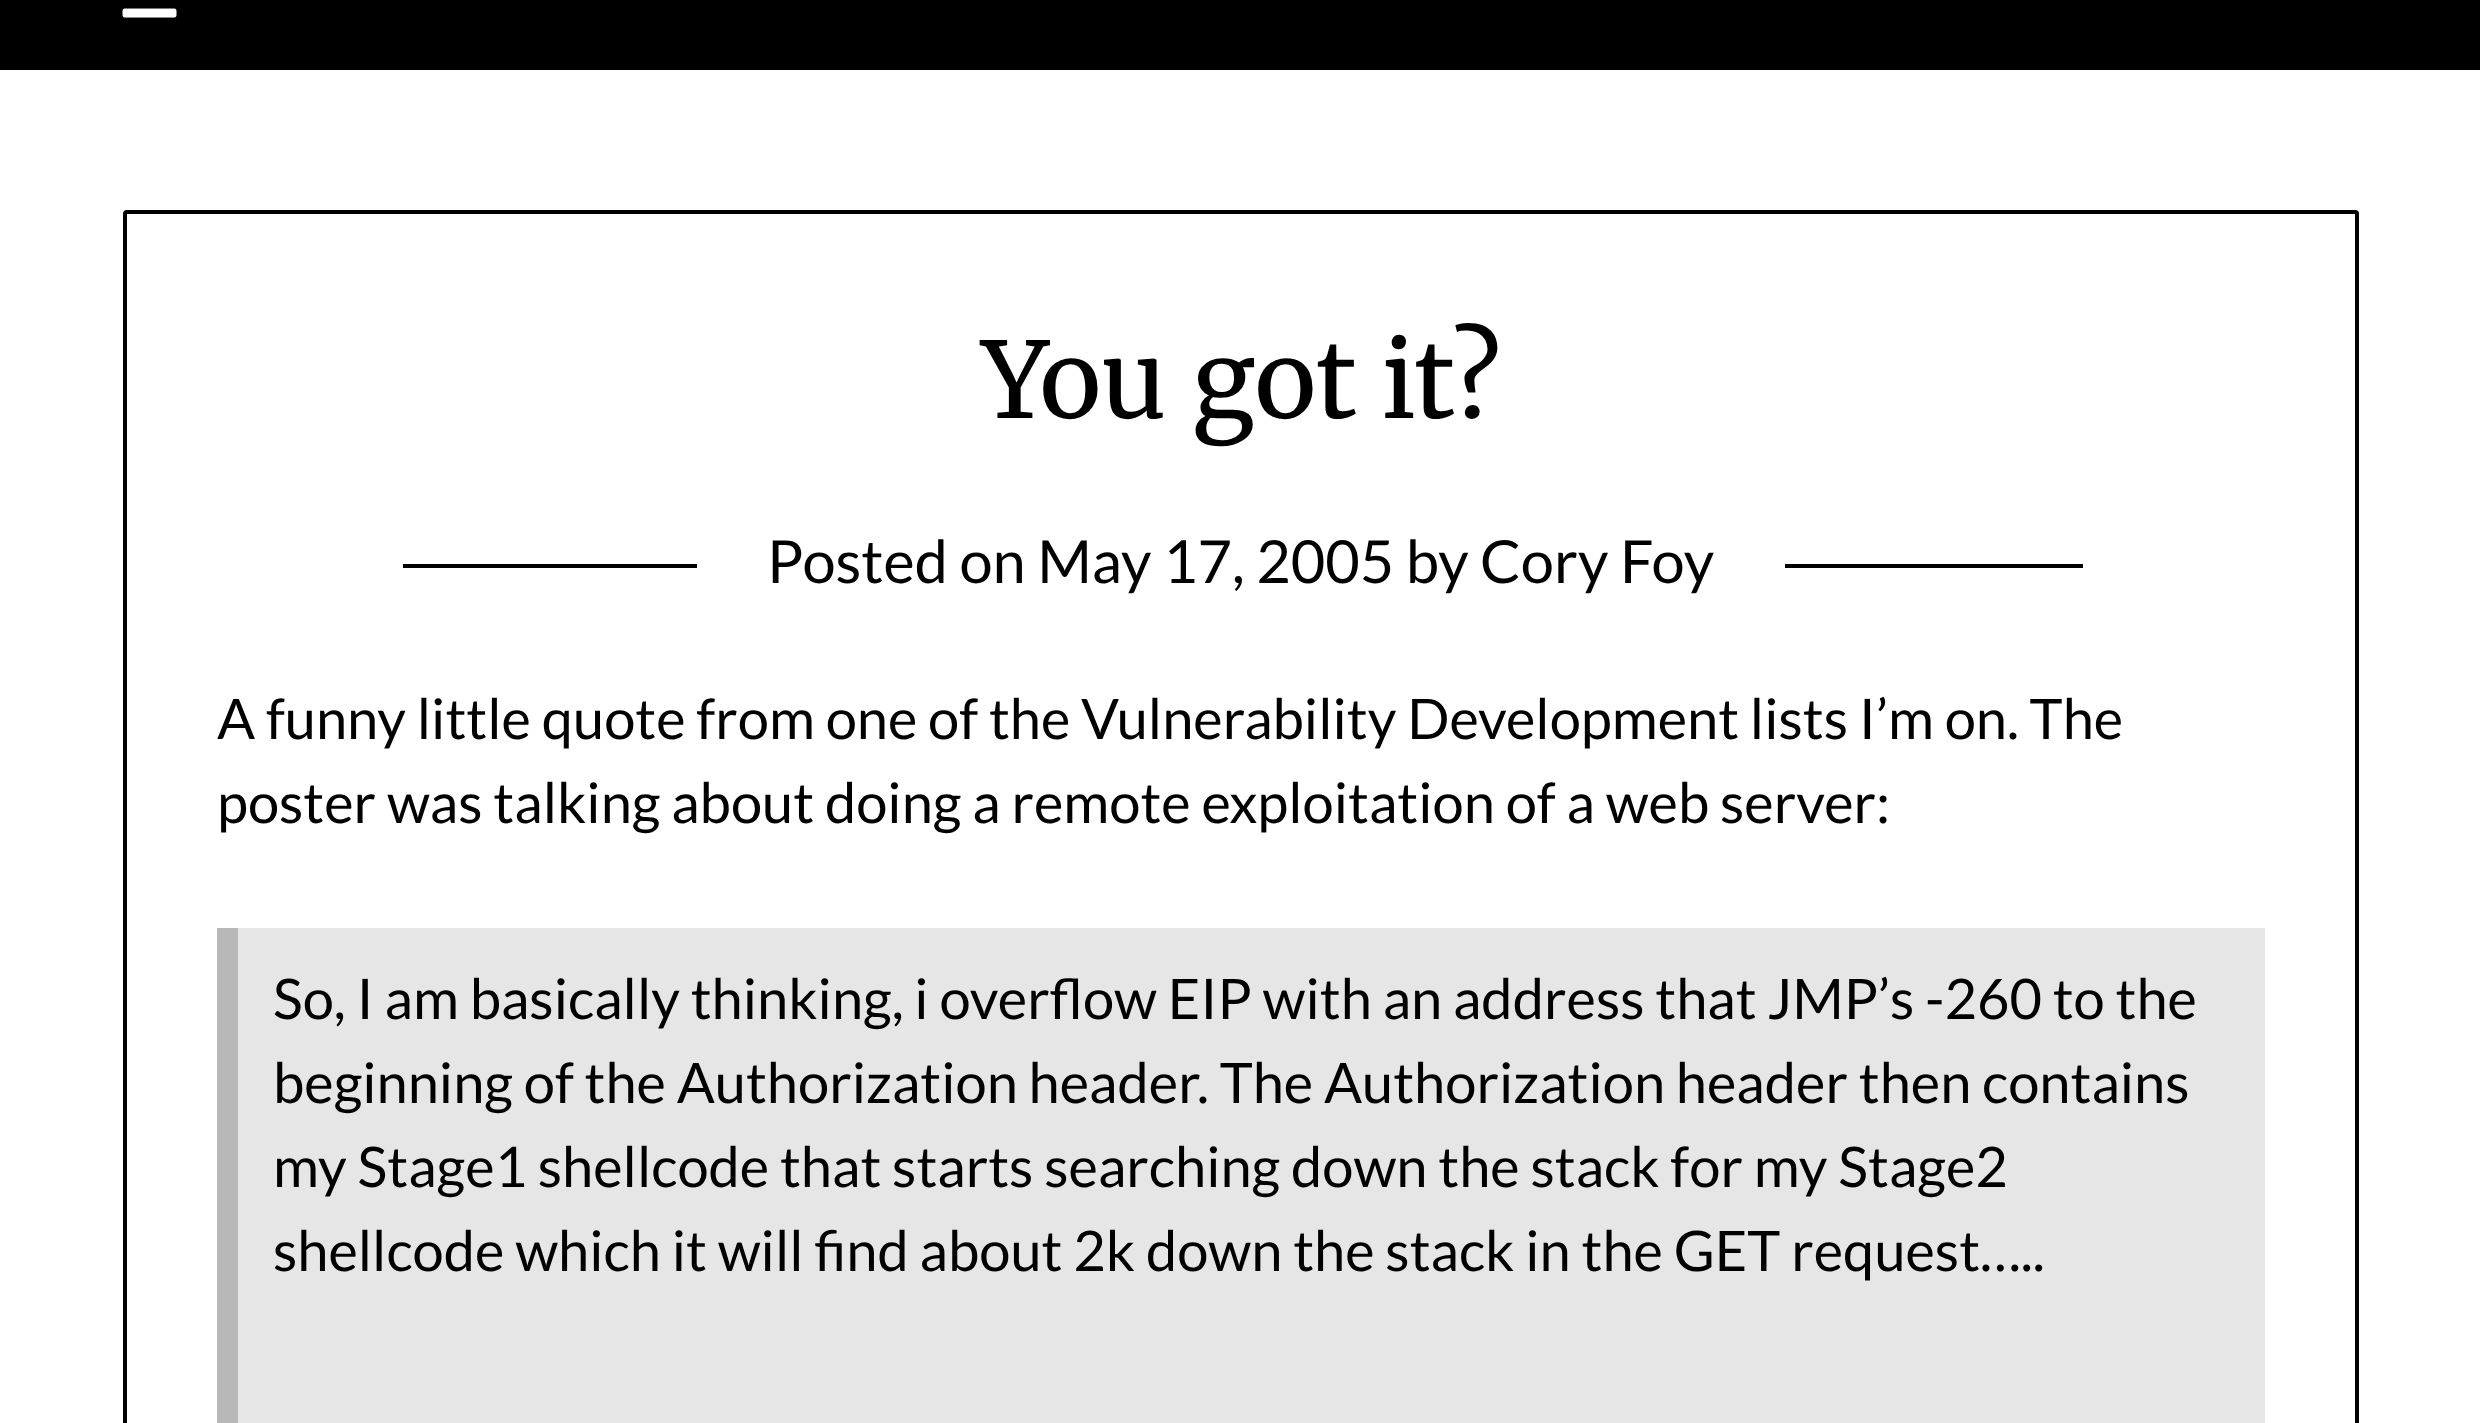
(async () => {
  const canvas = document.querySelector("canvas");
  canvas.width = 2480;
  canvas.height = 1423;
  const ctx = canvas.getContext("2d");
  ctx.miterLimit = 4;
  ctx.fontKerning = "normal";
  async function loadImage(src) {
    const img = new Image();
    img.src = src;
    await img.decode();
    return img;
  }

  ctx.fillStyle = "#ffffff";
  ctx.fillRect(0, 0, 2480, 1423);
  ctx.fillStyle = "#000000";
  ctx.fillRect(0, 0, 2480, 70);
  ctx.drawImage(await loadImage("img/1.png"), 122, 8, 55, 10);
  ctx.beginPath();
  ctx.roundRect(125, 212, 2232, 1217, 2);
  ctx.strokeStyle = "#000000";
  ctx.lineWidth = 4;
  ctx.stroke();
  for (const [x, y, w, h, color] of [
    [403, 564, 1680, 4, "#000000"],
    [697, 564, 1088, 4, "#ffffff"],
    [238, 928, 2027, 495, "#e6e6e6"],
    [217, 928, 21, 495, "#b8b8b8"],
  ]) {
    ctx.fillStyle = color;
    ctx.fillRect(x, y, w, h);
  }
  ctx.font = "105px Merriweather";
  ctx.fillStyle = "#000000";
  ctx.fillText("You got it?", 981, 418);
  ctx.font = "59.5px Lato";
  ctx.fillText("Posted on May 17, 2005 by Cory Foy", 767, 583);
  ctx.font = "56px Lato";
  for (const [text, x, y] of [
    ["A funny little quote from one of the Vulnerability Development lists I’m on. The", 217, 739],
    ["poster was talking about doing a remote exploitation of a web server:", 217, 823],
    ["So, I am basically thinking, i overflow EIP with an address that JMP’s -260 to the", 273, 1019],
    ["beginning of the Authorization header. The Authorization header then contains", 273, 1103],
    ["my Stage1 shellcode that starts searching down the stack for my Stage2", 273, 1187],
    ["shellcode which it will find about 2k down the stack in the GET request…..", 273, 1271],
  ]) {
    ctx.fillText(text, x, y);
  }
})();
